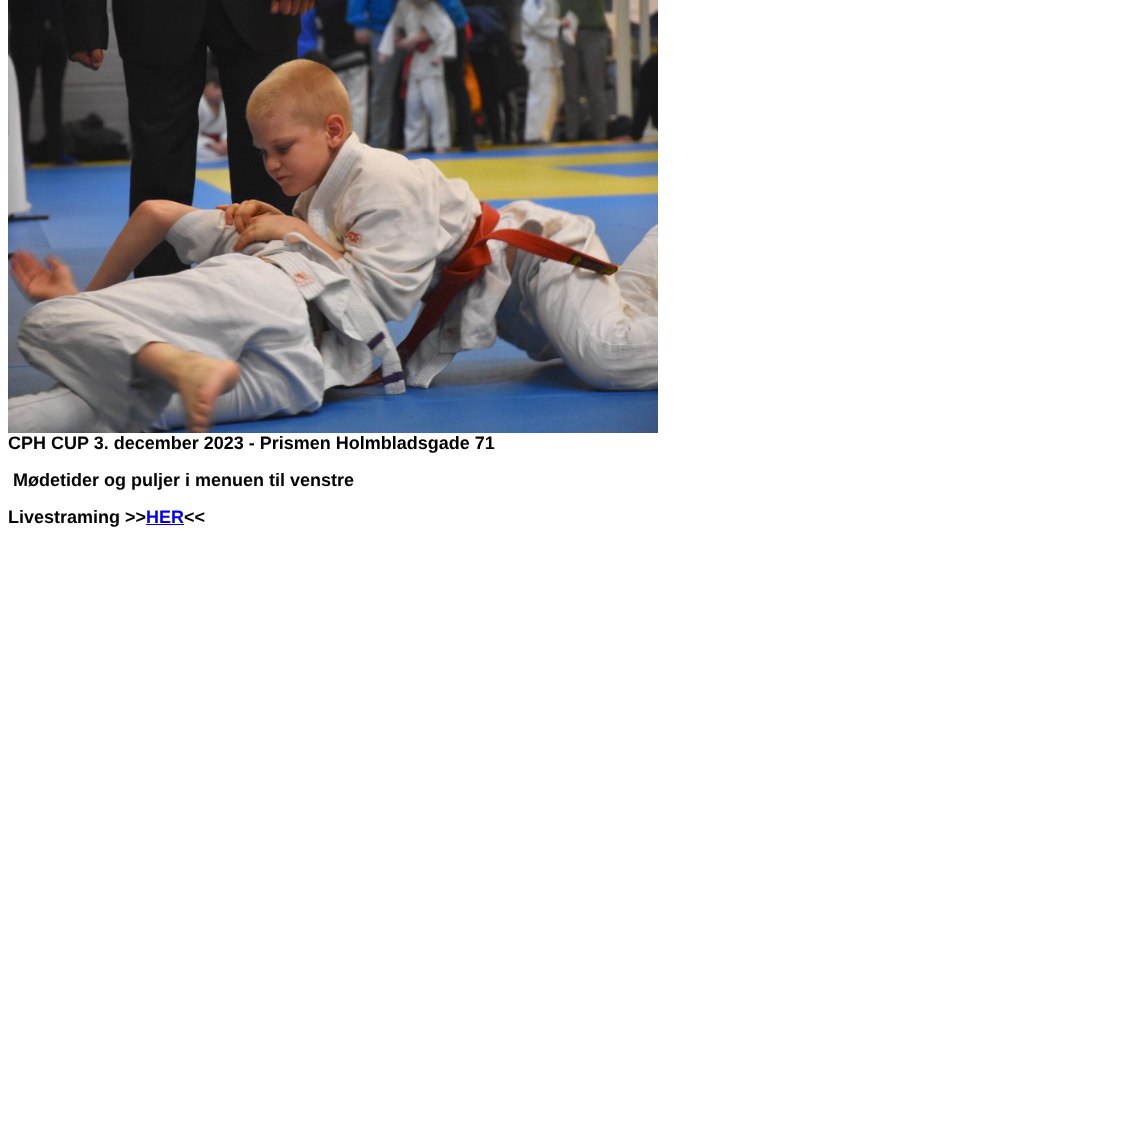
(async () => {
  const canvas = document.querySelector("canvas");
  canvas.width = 1140;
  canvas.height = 1134;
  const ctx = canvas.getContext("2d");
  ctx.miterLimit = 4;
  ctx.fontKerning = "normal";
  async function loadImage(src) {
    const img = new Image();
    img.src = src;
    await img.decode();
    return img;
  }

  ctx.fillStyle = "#ffffff";
  ctx.fillRect(0, 0, 1140, 1134);
  ctx.drawImage(await loadImage("img/1.png"), 8, 0, 650, 433);
  ctx.fillStyle = "#0000ee";
  ctx.fillRect(146, 524, 38, 1);
  ctx.font = "bold 18px Liberation Sans";
  ctx.fillStyle = "#000000";
  for (const [text, x, y] of [
    ["CPH CUP 3. december 2023 - Prismen Holmbladsgade 71", 8, 449],
    ["Mødetider og puljer i menuen til venstre", 13, 486],
    ["Livestraming >>", 8, 523],
  ]) {
    ctx.fillText(text, x, y);
  }
  ctx.fillStyle = "#0000ee";
  ctx.fillText("HER", 146, 523);
  ctx.fillStyle = "#000000";
  ctx.fillText("<<", 184, 523);
})();
